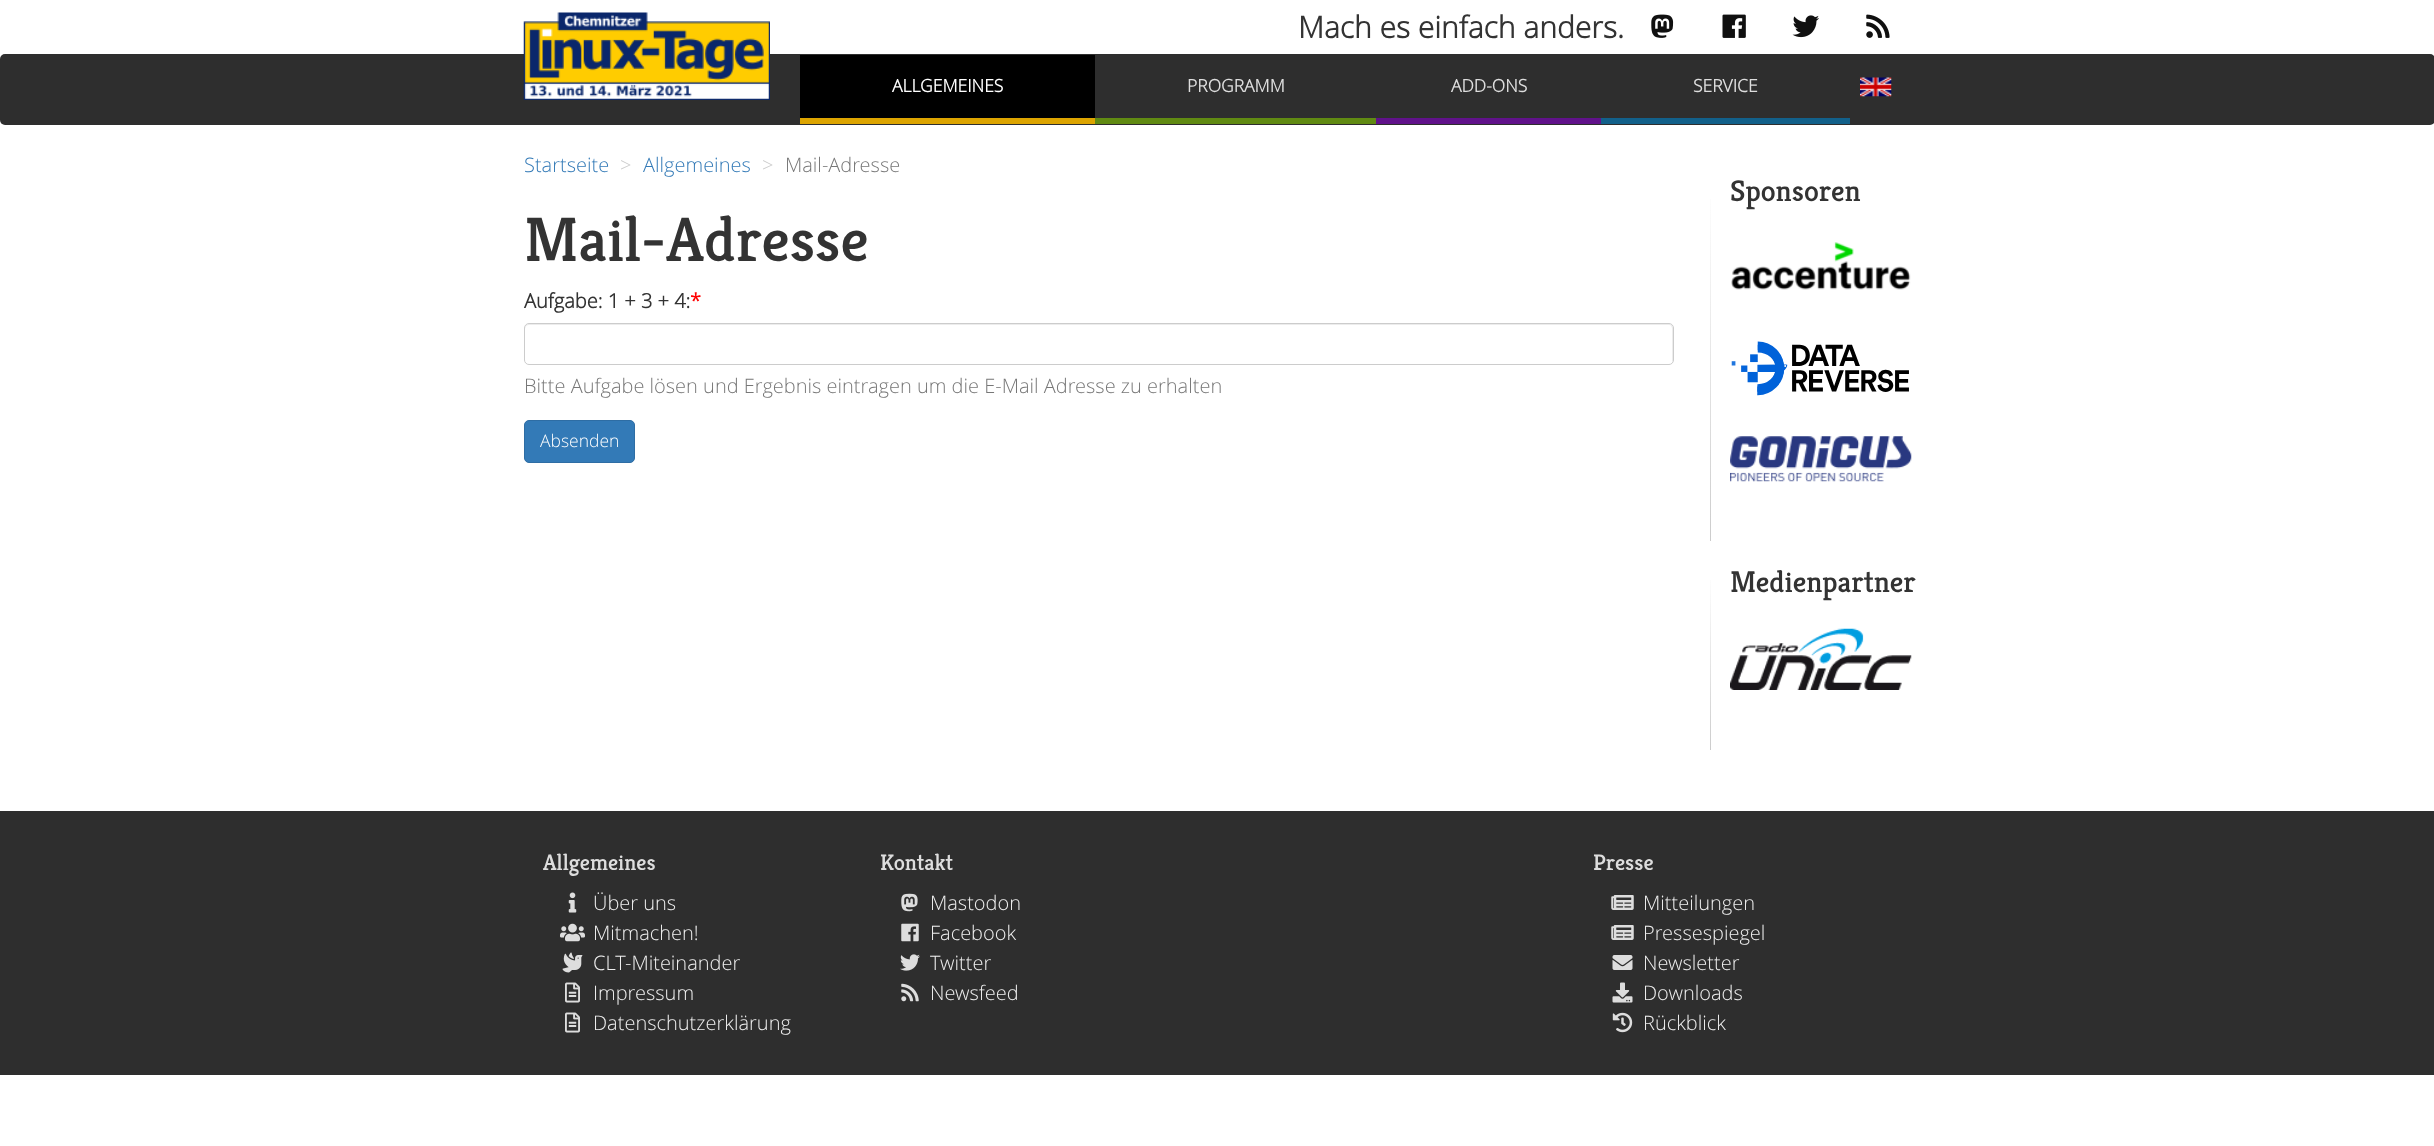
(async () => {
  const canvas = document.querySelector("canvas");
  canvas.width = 2434;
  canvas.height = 1146;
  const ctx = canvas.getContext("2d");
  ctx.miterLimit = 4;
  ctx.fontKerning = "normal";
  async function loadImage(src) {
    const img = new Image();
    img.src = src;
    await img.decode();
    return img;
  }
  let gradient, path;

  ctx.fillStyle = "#ffffff";
  ctx.fillRect(0, 0, 2434, 1146);
  ctx.fillStyle = "#2e2e2e";
  ctx.beginPath();
  ctx.roundRect(0, 54, 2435, 71, 5);
  ctx.fill();
  ctx.drawImage(await loadImage("img/1.png"), 523, 12, 247, 88);
  ctx.drawImage(await loadImage("img/2.png"), 1651, 14, 23, 24);
  ctx.drawImage(await loadImage("img/3.png"), 1722, 14, 24, 24);
  ctx.drawImage(await loadImage("img/4.png"), 1792, 15, 27, 23);
  ctx.drawImage(await loadImage("img/5.png"), 1866, 14, 24, 24);
  for (const [x, y, w, h, color] of [
    [800, 55, 295, 63, "#000000"],
    [800, 118, 295, 6, "#dca400"],
    [1095, 118, 281, 6, "#608a12"],
    [1376, 118, 225, 6, "#60128a"],
    [1601, 118, 249, 6, "#12608a"],
  ]) {
    ctx.fillStyle = color;
    ctx.fillRect(x, y, w, h);
  }
  ctx.drawImage(await loadImage("img/6.png"), 1860, 77, 32, 20);
  ctx.fillStyle = "#ececec";
  path = new Path2D("M529 325H1669C1671 325 1672 327 1672 329V363C1672 362 1673 361 1673 360V328C1673 326 1671 324 1669 324H529C527 324 525 326 525 328V329C525 327 527 325 529 325Z");
  ctx.fill(path);
  ctx.beginPath();
  ctx.roundRect(524.5, 323.5, 1149, 41, 4.5);
  ctx.strokeStyle = "#cccccc";
  ctx.stroke();
  ctx.fillStyle = "#337ab7";
  ctx.beginPath();
  ctx.roundRect(524.5, 420.5, 110, 42, 4.5);
  ctx.fill();
  ctx.strokeStyle = "#2e6da4";
  ctx.stroke();
  gradient = ctx.createLinearGradient(1711, 181, 1711, 541);
  gradient.addColorStop(0, "#ffffff");
  gradient.addColorStop(1, "#cccccc");
  ctx.fillStyle = gradient;
  ctx.fillRect(1710, 199, 1, 342);
  ctx.drawImage(await loadImage("img/7.png"), 1731, 242, 180, 48);
  ctx.drawImage(await loadImage("img/8.png"), 1731, 341, 178, 55);
  ctx.drawImage(await loadImage("img/9.png"), 1730, 436, 182, 46);
  gradient = ctx.createLinearGradient(1711, 571, 1711, 750);
  gradient.addColorStop(0, "#ffffff");
  gradient.addColorStop(1, "#cccccc");
  ctx.fillStyle = gradient;
  ctx.fillRect(1710, 580, 1, 170);
  ctx.drawImage(await loadImage("img/10.png"), 1730, 628, 182, 62);
  ctx.fillStyle = "#2e2e2e";
  ctx.fillRect(0, 811, 2434, 264);
  ctx.drawImage(await loadImage("img/11.png"), 568, 892, 9, 21);
  ctx.drawImage(await loadImage("img/12.png"), 560, 923, 25, 19);
  ctx.drawImage(await loadImage("img/13.png"), 562, 952, 21, 21);
  ctx.drawImage(await loadImage("img/14.png"), 565, 982, 15, 21);
  ctx.drawImage(await loadImage("img/14.png"), 565, 1012, 15, 21);
  ctx.drawImage(await loadImage("img/15.png"), 901, 893, 17, 19);
  ctx.drawImage(await loadImage("img/16.png"), 901, 923, 18, 19);
  ctx.drawImage(await loadImage("img/17.png"), 900, 954, 20, 17);
  ctx.drawImage(await loadImage("img/18.png"), 901, 983, 18, 19);
  ctx.drawImage(await loadImage("img/19.png"), 1611, 895, 23, 15);
  ctx.drawImage(await loadImage("img/19.png"), 1611, 925, 23, 15);
  ctx.drawImage(await loadImage("img/20.png"), 1612, 955, 21, 15);
  ctx.drawImage(await loadImage("img/21.png"), 1612, 982, 21, 21);
  ctx.drawImage(await loadImage("img/22.png"), 1612, 1012, 21, 21);
  ctx.font = "bold 30px Open Sans";
  ctx.fillStyle = "#333333";
  ctx.fillText("Mach es einfach anders.", 1298, 38);
  ctx.font = "bold 17.5px Open Sans";
  ctx.fillStyle = "#ffffff";
  ctx.fillText("ALLGEMEINES", 892, 92);
  ctx.fillStyle = "#dddddd";
  for (const [text, x, y] of [
    ["PROGRAMM", 1187, 92],
    ["ADD-ONS", 1451, 92],
    ["SERVICE", 1693, 92],
  ]) {
    ctx.fillText(text, x, y);
  }
  ctx.font = "300 20px Open Sans";
  ctx.fillStyle = "#337ab7";
  ctx.fillText("Startseite", 524, 172);
  ctx.fillStyle = "#cccccc";
  ctx.fillText(">", 620, 172);
  ctx.fillStyle = "#337ab7";
  ctx.fillText("Allgemeines", 643, 172);
  ctx.fillStyle = "#cccccc";
  ctx.fillText(">", 762, 172);
  ctx.fillStyle = "#777777";
  ctx.fillText("Mail-Adresse", 785, 172);
  ctx.font = "500 62.5px Kreon";
  ctx.fillStyle = "#333333";
  ctx.fillText("Mail-Adresse", 524, 261);
  ctx.font = "bold 20px Open Sans";
  ctx.fillText("Aufgabe: 1 + 3 + 4:", 524, 308);
  ctx.fillStyle = "#ff0000";
  ctx.fillText("*", 690, 308);
  ctx.font = "300 20px Open Sans";
  ctx.fillStyle = "#777777";
  ctx.fillText("Bitte Aufgabe lösen und Ergebnis eintragen um die E-Mail Adresse zu erhalten", 524, 393);
  ctx.font = "300 17.5px Open Sans";
  ctx.fillStyle = "#ffffff";
  ctx.fillText("Absenden", 540, 447);
  ctx.font = "500 30px Kreon";
  ctx.fillStyle = "#333333";
  ctx.fillText("Sponsoren", 1730, 201);
  ctx.fillText("Medienpartner", 1730, 592);
  ctx.font = "500 22.5px Kreon";
  ctx.fillStyle = "#dddddd";
  ctx.fillText("Allgemeines", 543, 870);
  ctx.font = "300 20px Open Sans";
  ctx.fillStyle = "#efefef";
  for (const [text, x, y] of [
    ["Über uns", 593, 910],
    ["Mitmachen!", 593, 940],
    ["CLT-Miteinander", 593, 970],
    ["Impressum", 593, 1000],
    ["Datenschutzerklärung", 593, 1030],
  ]) {
    ctx.fillText(text, x, y);
  }
  ctx.font = "500 22.5px Kreon";
  ctx.fillStyle = "#dddddd";
  ctx.fillText("Kontakt", 880, 870);
  ctx.font = "300 20px Open Sans";
  ctx.fillStyle = "#efefef";
  for (const [text, x, y] of [
    ["Mastodon", 930, 910],
    ["Facebook", 930, 940],
    ["Twitter", 930, 970],
    ["Newsfeed", 930, 1000],
  ]) {
    ctx.fillText(text, x, y);
  }
  ctx.font = "500 22.5px Kreon";
  ctx.fillStyle = "#dddddd";
  ctx.fillText("Presse", 1593, 870);
  ctx.font = "300 20px Open Sans";
  ctx.fillStyle = "#efefef";
  for (const [text, x, y] of [
    ["Mitteilungen", 1643, 910],
    ["Pressespiegel", 1643, 940],
    ["Newsletter", 1643, 970],
    ["Downloads", 1643, 1000],
    ["Rückblick", 1643, 1030],
  ]) {
    ctx.fillText(text, x, y);
  }
})();
